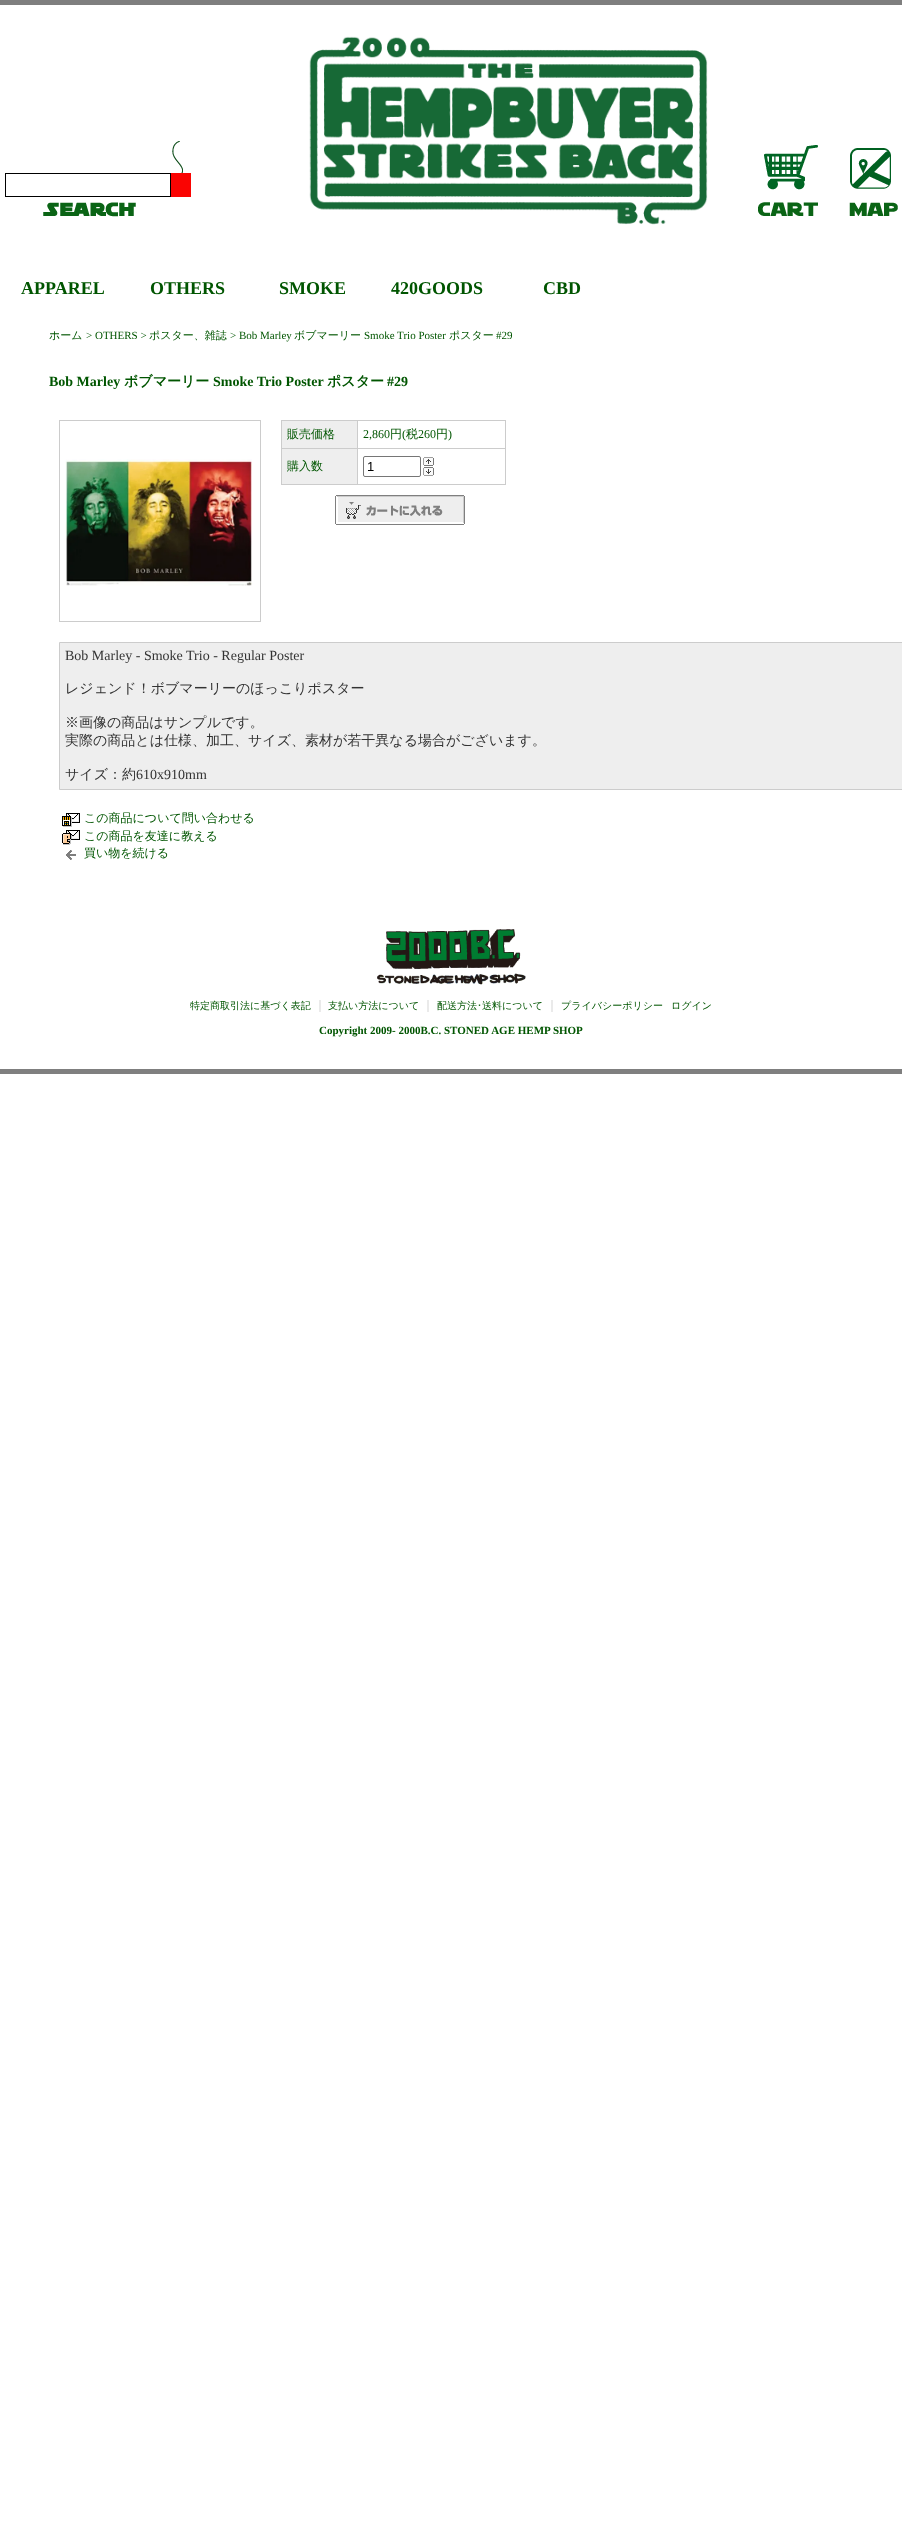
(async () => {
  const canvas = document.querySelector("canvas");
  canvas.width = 902;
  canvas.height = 2541;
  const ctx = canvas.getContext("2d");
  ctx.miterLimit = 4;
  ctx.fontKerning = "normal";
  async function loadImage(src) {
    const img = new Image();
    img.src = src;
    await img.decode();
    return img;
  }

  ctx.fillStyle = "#ffffff";
  ctx.fillRect(0, 0, 902, 2541);
  ctx.fillStyle = "#7f7f7f";
  ctx.fillRect(0, 0, 902, 5);
  ctx.fillRect(0, 1069, 902, 5);
  ctx.drawImage(await loadImage("img/1.png"), 309, 36, 399, 189);
  ctx.drawImage(await loadImage("img/2.png"), 43, 141, 140, 76);
  ctx.strokeStyle = "#000000";
  ctx.strokeRect(5.5, 173.5, 165, 23);
  ctx.fillStyle = "#fa0402";
  ctx.fillRect(171, 173, 20, 24);
  ctx.drawImage(await loadImage("img/3.png"), 758, 145, 60, 71);
  ctx.drawImage(await loadImage("img/4.png"), 849, 148, 49, 68);
  ctx.strokeStyle = "#cccccc";
  ctx.strokeRect(59.5, 420.5, 201, 201);
  ctx.drawImage(await loadImage("img/5.png"), 65, 459, 187, 127);
  for (const [x, y, w, h, color] of [
    [281, 420, 225, 65, "#cccccc"],
    [282, 421, 75, 27, "#eeeeee"],
    [358, 421, 147, 27, "#ffffff"],
    [282, 449, 75, 35, "#eeeeee"],
    [358, 449, 147, 35, "#ffffff"],
  ]) {
    ctx.fillStyle = color;
    ctx.fillRect(x, y, w, h);
  }
  ctx.beginPath();
  ctx.roundRect(363.5, 456.5, 57, 20, 1.5);
  ctx.strokeStyle = "#767676";
  ctx.stroke();
  ctx.drawImage(await loadImage("img/6.png"), 423, 457, 11, 9);
  ctx.drawImage(await loadImage("img/7.png"), 423, 467, 11, 9);
  ctx.drawImage(await loadImage("img/8.png"), 335, 495, 130, 30);
  ctx.fillStyle = "#eeeeee";
  ctx.beginPath();
  ctx.rect(59.5, 642.5, 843, 147);
  ctx.fill();
  ctx.strokeStyle = "#cccccc";
  ctx.stroke();
  ctx.drawImage(await loadImage("img/9.png"), 62, 813, 18, 14);
  ctx.drawImage(await loadImage("img/10.png"), 62, 830, 18, 15);
  ctx.drawImage(await loadImage("img/11.png"), 66, 850, 10, 10);
  ctx.drawImage(await loadImage("img/12.png"), 377, 929, 149, 56);
  ctx.font = "bold 18px Liberation Serif";
  ctx.fillStyle = "#005500";
  for (const [text, x, y] of [
    ["APPAREL", 21, 294],
    ["OTHERS", 150, 294],
    ["SMOKE", 279, 294],
    ["420GOODS", 391, 294],
    ["CBD", 543, 294],
  ]) {
    ctx.fillText(text, x, y);
  }
  ctx.font = "500 11px WenQuanYi Zen Hei";
  ctx.fillText("ホーム", 49, 339);
  ctx.font = "11px Liberation Serif";
  ctx.fillText("> OTHERS >", 86, 339);
  ctx.font = "500 11px WenQuanYi Zen Hei";
  ctx.fillText("ポスター、雑誌", 149, 339);
  ctx.font = "11px Liberation Serif";
  ctx.fillText("> Bob Marley", 230, 339);
  ctx.font = "500 11px WenQuanYi Zen Hei";
  ctx.fillText("ボブマーリー", 294, 339);
  ctx.font = "11px Liberation Serif";
  ctx.fillText("Smoke Trio Poster", 364, 339);
  ctx.font = "500 11px WenQuanYi Zen Hei";
  ctx.fillText("ポスター", 449, 339);
  ctx.font = "11px Liberation Serif";
  ctx.fillText("#29", 496, 339);
  ctx.font = "bold 14px Liberation Serif";
  ctx.fillText("Bob Marley", 49, 386);
  ctx.font = "bold 14px WenQuanYi Zen Hei";
  ctx.fillText("ボブマーリー", 124, 386);
  ctx.font = "bold 14px Liberation Serif";
  ctx.fillText("Smoke Trio Poster", 213, 386);
  ctx.font = "bold 14px WenQuanYi Zen Hei";
  ctx.fillText("ポスター", 327, 386);
  ctx.font = "bold 14px Liberation Serif";
  ctx.fillText("#29", 387, 386);
  ctx.font = "500 12px WenQuanYi Zen Hei";
  ctx.fillText("販売価格", 287, 438);
  ctx.font = "12px Liberation Serif";
  ctx.fillText("2,860", 363, 438);
  ctx.font = "500 12px WenQuanYi Zen Hei";
  ctx.fillText("円", 390, 438);
  ctx.font = "12px Liberation Serif";
  ctx.fillText("(", 402, 438);
  ctx.font = "500 12px WenQuanYi Zen Hei";
  ctx.fillText("税", 406, 438);
  ctx.font = "12px Liberation Serif";
  ctx.fillText("260", 418, 438);
  ctx.font = "500 12px WenQuanYi Zen Hei";
  ctx.fillText("円", 436, 438);
  ctx.font = "12px Liberation Serif";
  ctx.fillText(")", 448, 438);
  ctx.font = "500 12px WenQuanYi Zen Hei";
  ctx.fillText("購入数", 287, 470);
  ctx.font = "13px Liberation Sans";
  ctx.fillStyle = "#000000";
  ctx.fillText("1", 367, 471);
  ctx.font = "14px Liberation Serif";
  ctx.fillStyle = "#333333";
  ctx.fillText("Bob Marley - Smoke Trio - Regular Poster", 65, 660);
  ctx.font = "500 14px WenQuanYi Zen Hei";
  for (const [text, x, y] of [
    ["レジェンド！ボブマーリーのほっこりポスター", 65, 693],
    ["※画像の商品はサンプルです。", 65, 727],
    ["実際の商品とは仕様、加工、サイズ、素材が若干異なる場合がございます。", 65, 745],
    ["サイズ：約", 65, 779],
  ]) {
    ctx.fillText(text, x, y);
  }
  ctx.font = "14px Liberation Serif";
  ctx.fillText("610x910mm", 136, 779);
  ctx.font = "500 12px WenQuanYi Zen Hei";
  ctx.fillStyle = "#005500";
  for (const [text, x, y] of [
    ["この商品について問い合わせる", 84, 822],
    ["この商品を友達に教える", 84, 840],
    ["買い物を続ける", 84, 857],
  ]) {
    ctx.fillText(text, x, y);
  }
  ctx.font = "500 10px WenQuanYi Zen Hei";
  ctx.fillText("特定商取引法に基づく表記", 190, 1009);
  ctx.font = "500 12px WenQuanYi Zen Hei";
  ctx.fillStyle = "#cccccc";
  ctx.fillText("｜", 314, 1009);
  ctx.font = "500 10px WenQuanYi Zen Hei";
  ctx.fillStyle = "#005500";
  ctx.fillText("支払い方法について", 328, 1009);
  ctx.font = "500 12px WenQuanYi Zen Hei";
  ctx.fillStyle = "#cccccc";
  ctx.fillText("｜", 422, 1009);
  ctx.font = "500 10px WenQuanYi Zen Hei";
  ctx.fillStyle = "#005500";
  ctx.fillText("配送方法", 437, 1009);
  ctx.font = "10px IPAPGothic";
  ctx.fillText("･", 477, 1009);
  ctx.font = "500 10px WenQuanYi Zen Hei";
  ctx.fillText("送料について", 482, 1009);
  ctx.font = "500 12px WenQuanYi Zen Hei";
  ctx.fillStyle = "#cccccc";
  ctx.fillText("｜", 546, 1009);
  ctx.font = "500 10px WenQuanYi Zen Hei";
  ctx.fillStyle = "#005500";
  ctx.fillText("プライバシーポリシー", 561, 1009);
  ctx.fillText("ログイン", 671, 1009);
  ctx.font = "bold 11px Liberation Serif";
  ctx.fillText("Copyright 2009- 2000B.C. STONED AGE HEMP SHOP", 319, 1034);
})();
